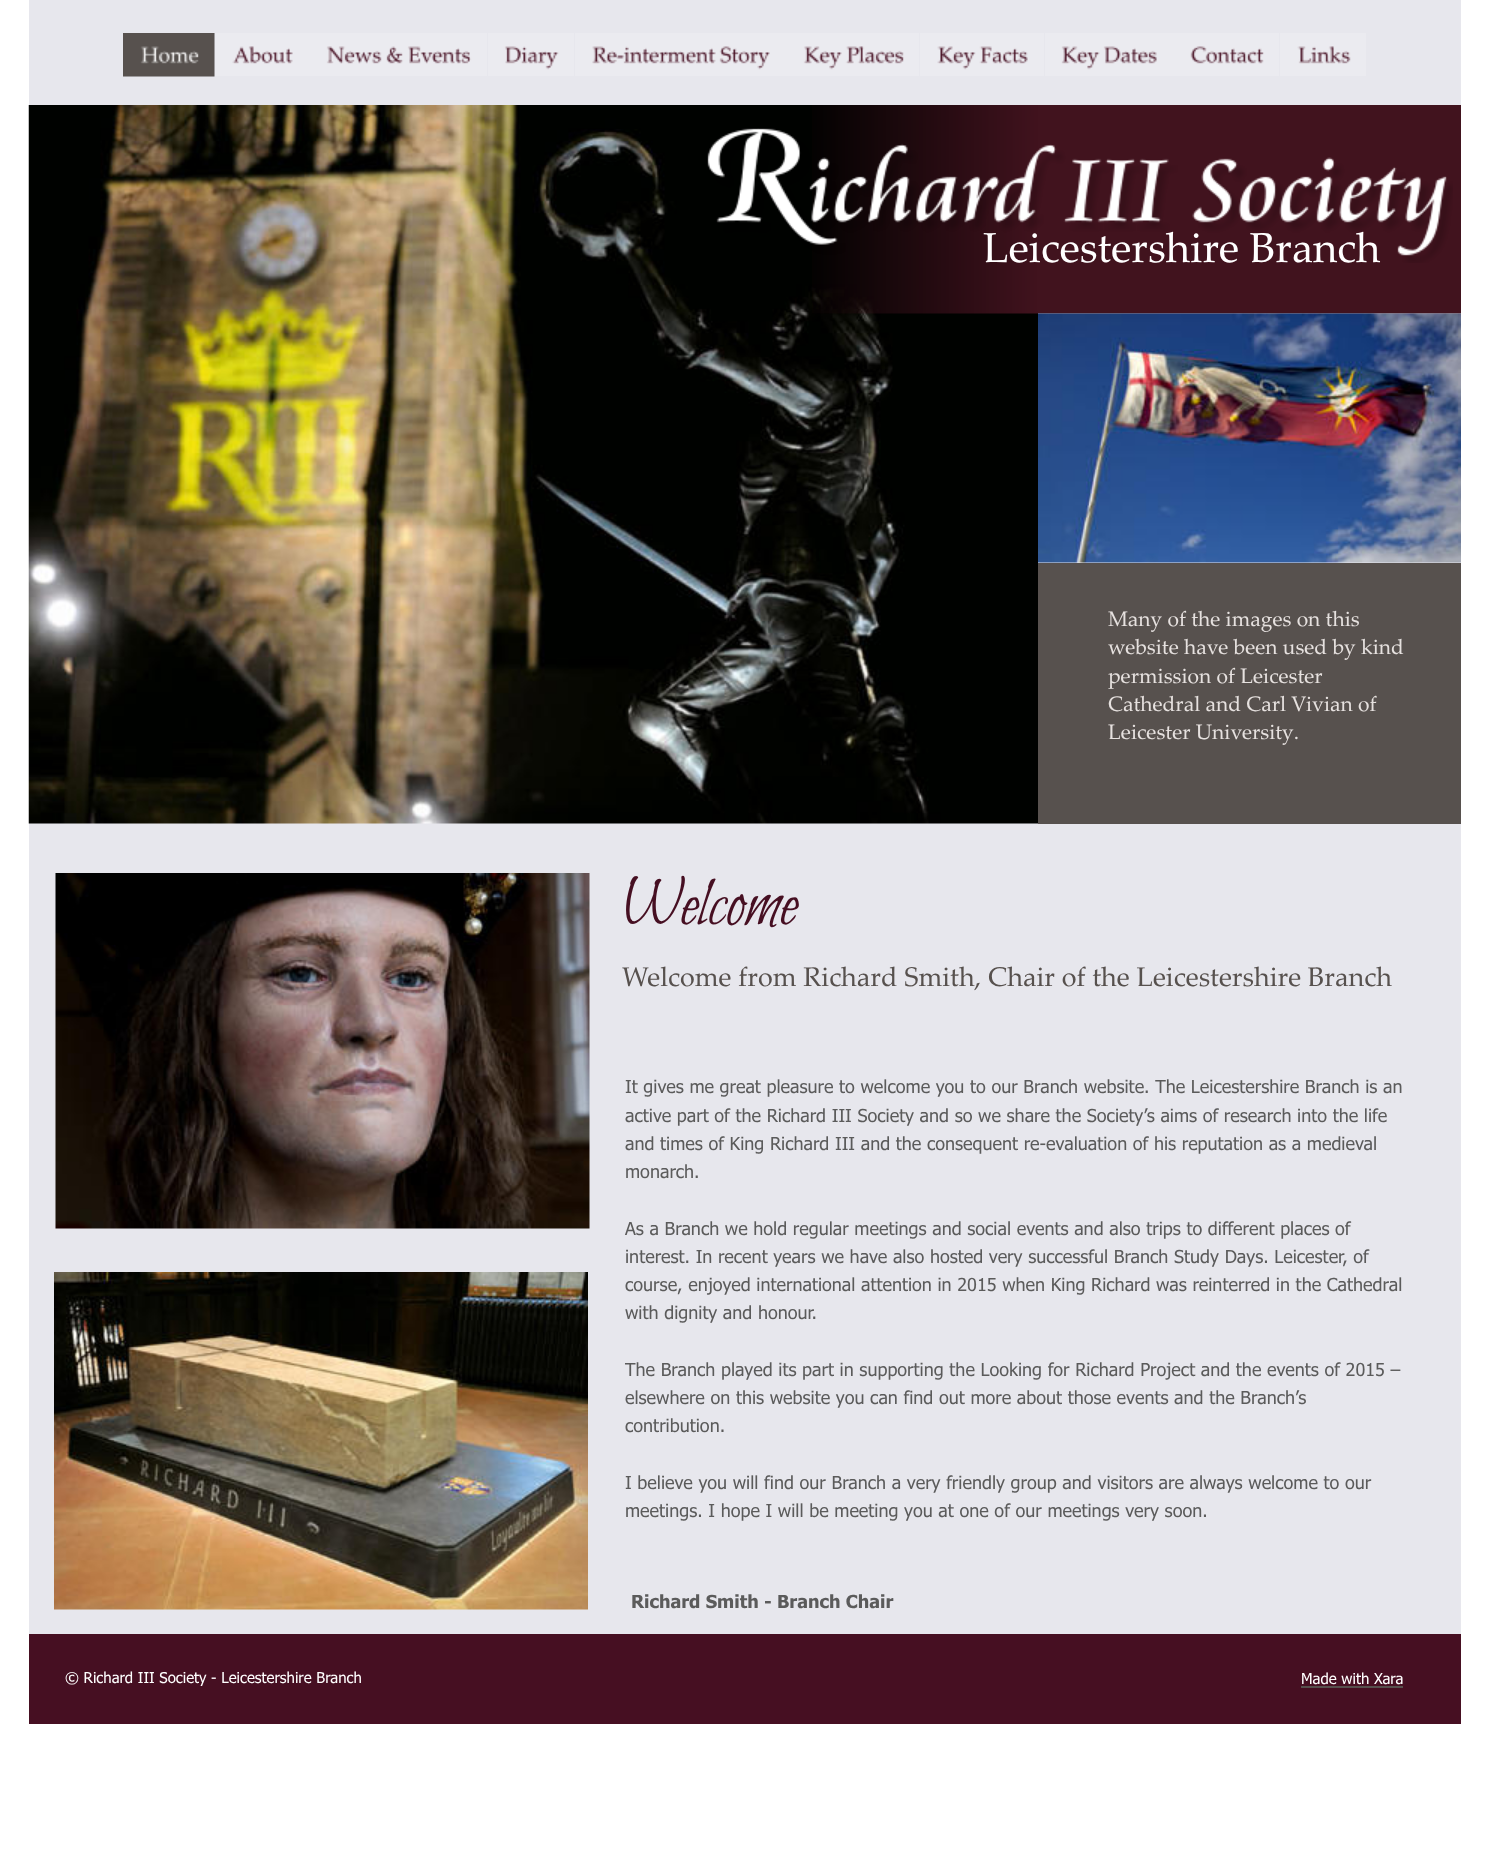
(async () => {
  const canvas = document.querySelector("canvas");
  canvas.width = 1487;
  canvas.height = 1869;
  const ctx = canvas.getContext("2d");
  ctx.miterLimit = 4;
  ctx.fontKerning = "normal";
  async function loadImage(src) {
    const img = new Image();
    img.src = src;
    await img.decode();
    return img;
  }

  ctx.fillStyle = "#ffffff";
  ctx.fillRect(0, 0, 1487, 1869);
  ctx.fillStyle = "#e7e7ed";
  ctx.fillRect(29, 0, 1432, 1634);
  ctx.drawImage(await loadImage("img/1.png"), 123, 33, 92, 44);
  ctx.drawImage(await loadImage("img/2.png"), 215, 33, 94, 43);
  ctx.drawImage(await loadImage("img/3.png"), 309, 33, 178, 43);
  ctx.drawImage(await loadImage("img/4.png"), 488, 33, 86, 43);
  ctx.drawImage(await loadImage("img/5.png"), 575, 33, 211, 43);
  ctx.drawImage(await loadImage("img/6.png"), 786, 33, 133, 43);
  ctx.drawImage(await loadImage("img/7.png"), 920, 33, 124, 43);
  ctx.drawImage(await loadImage("img/8.png"), 1045, 33, 128, 43);
  ctx.drawImage(await loadImage("img/9.png"), 1173, 33, 106, 43);
  ctx.drawImage(await loadImage("img/10.png"), 1280, 33, 86, 43);
  ctx.drawImage(await loadImage("img/11.png"), 28, 105, 1010, 719);
  ctx.drawImage(await loadImage("img/12.png"), 812, 105, 649, 209);
  ctx.drawImage(await loadImage("img/14.png"), 1038, 313, 423, 250);
  ctx.fillStyle = "#57514e";
  ctx.fillRect(1038, 563, 423, 261);
  ctx.drawImage(await loadImage("img/15.png"), 55, 873, 535, 356);
  ctx.drawImage(await loadImage("img/16.png"), 54, 1272, 534, 338);
  ctx.fillStyle = "#460f22";
  ctx.fillRect(29, 1634, 1432, 90);
  ctx.fillStyle = "#57514e";
  ctx.fillRect(1301, 1686, 102, 2);
  ctx.font = "42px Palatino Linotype";
  ctx.fillStyle = "#ffffff";
  ctx.fillText("Leicestershire Branch", 983, 262);
  ctx.drawImage(await loadImage("img/13.png"), 707, 128, 746, 135);
  ctx.font = "21px Palatino Linotype";
  ctx.fillStyle = "#e6e1df";
  for (const [text, x, y] of [
    ["Many of the images on this", 1108, 626],
    ["website have been used by kind", 1108, 654],
    ["permission of Leicester", 1108, 683],
    ["Cathedral and Carl Vivian of", 1108, 711],
    ["Leicester University.", 1108, 739],
  ]) {
    ctx.fillText(text, x, y);
  }
  ctx.font = "72px Bilbo";
  ctx.fillStyle = "#460f22";
  ctx.fillText("Welcome", 622, 924);
  ctx.font = "27px Palatino Linotype";
  ctx.fillStyle = "#57514e";
  ctx.fillText("Welcome from Richard Smith, Chair of the Leicestershire Branch", 622, 986);
  ctx.font = "18px Tahoma";
  ctx.fillStyle = "#5b5b5b";
  for (const [text, x, y] of [
    ["It gives me great pleasure to welcome you to our Branch website. The Leicestershire Branch is an", 625, 1093],
    ["active part of the Richard III Society and so we share the Society’s aims of research into the life", 625, 1122],
    ["and times of King Richard III and the consequent re-evaluation of his reputation as a medieval", 625, 1150],
    ["monarch.", 625, 1178],
    ["As a Branch we hold regular meetings and social events and also trips to different places of", 625, 1235],
    ["interest. In recent years we have also hosted very successful Branch Study Days. Leicester, of", 625, 1263],
    ["course, enjoyed international attention in 2015 when King Richard was reinterred in the Cathedral", 625, 1291],
    ["with dignity and honour.", 625, 1319],
    ["The Branch played its part in supporting the Looking for Richard Project and the events of 2015 –", 625, 1376],
    ["elsewhere on this website you can find out more about those events and the Branch’s", 625, 1404],
    ["contribution.", 625, 1432],
    ["I believe you will find our Branch a very friendly group and visitors are always welcome to our", 625, 1489],
    ["meetings. I hope I will be meeting you at one of our meetings very soon.", 625, 1517],
  ]) {
    ctx.fillText(text, x, y);
  }
  ctx.font = "bold 18px Tahoma";
  ctx.fillText("Richard Smith - Branch Chair", 631, 1608);
  ctx.font = "15px Tahoma";
  ctx.fillStyle = "#ffffff";
  ctx.fillText("© Richard III Society - Leicestershire Branch", 65, 1683);
  ctx.fillText("Made with Xara", 1301, 1684);
})();
